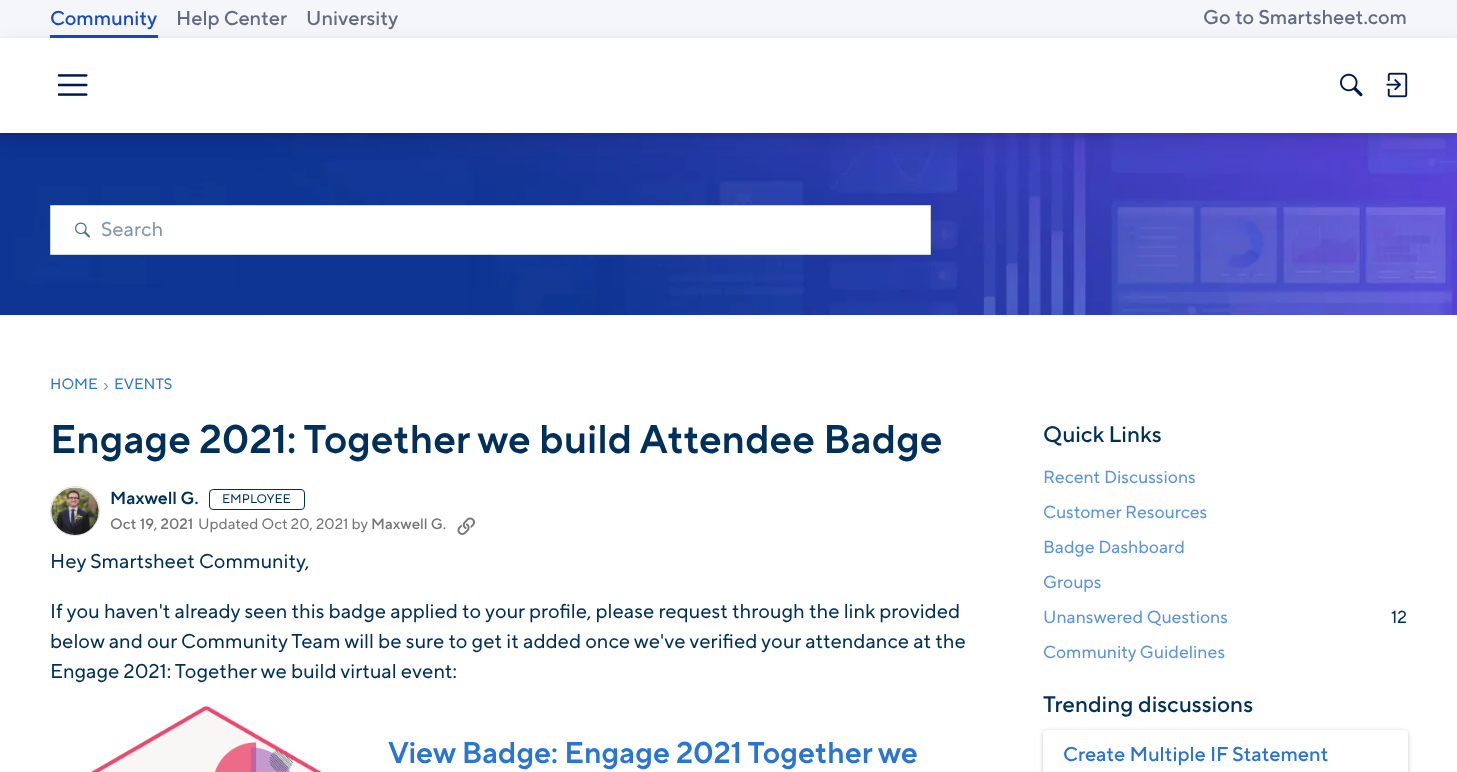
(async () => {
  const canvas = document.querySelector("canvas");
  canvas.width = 1457;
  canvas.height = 772;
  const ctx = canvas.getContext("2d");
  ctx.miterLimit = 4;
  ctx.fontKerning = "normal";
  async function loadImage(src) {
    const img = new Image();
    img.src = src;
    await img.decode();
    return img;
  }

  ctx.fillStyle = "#ffffff";
  ctx.fillRect(0, 0, 1457, 772);
  ctx.fillStyle = "#f5f6fa";
  ctx.fillRect(0, 0, 1457, 38);
  ctx.fillStyle = "#184bc3";
  ctx.fillRect(50, 35, 108, 3);
  ctx.drawImage(await loadImage("img/4.png"), 0, 133, 1457, 182);
  ctx.fillStyle = "rgba(0, 0, 0, 0.1)";
  ctx.filter = "blur(10px)";
  ctx.beginPath();
  ctx.rect(0, 45, 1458, 95);
  ctx.fill();
  ctx.filter = "none";
  ctx.fillStyle = "rgba(0, 0, 0, 0.12)";
  ctx.filter = "blur(2.5px)";
  ctx.beginPath();
  ctx.rect(0, 40, 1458, 95);
  ctx.fill();
  ctx.filter = "none";
  ctx.fillStyle = "#ffffff";
  ctx.fillRect(0, 38, 1457, 95);
  ctx.drawImage(await loadImage("img/1.png"), 58, 74, 30, 22);
  ctx.drawImage(await loadImage("img/2.png"), 1340, 73, 23, 24);
  ctx.drawImage(await loadImage("img/3.png"), 1386, 72, 22, 26);
  ctx.beginPath();
  ctx.rect(50.5, 205.5, 880, 49);
  ctx.fill();
  ctx.strokeStyle = "#ccd6de";
  ctx.stroke();
  ctx.drawImage(await loadImage("img/5.png"), 75, 222, 15, 16);
  ctx.beginPath();
  ctx.arc(75, 511, 24.5, 0, Math.PI * 2);
  ctx.strokeStyle = "#d9e0e6";
  ctx.stroke();
  ctx.drawImage(await loadImage("img/6.png"), 51, 487, 48, 48);
  ctx.beginPath();
  ctx.roundRect(209.5, 489.5, 95, 20, 3.5);
  ctx.strokeStyle = "#003059";
  ctx.stroke();
  ctx.drawImage(await loadImage("img/7.png"), 457, 517, 18, 18);
  ctx.drawImage(await loadImage("img/8.png"), 91, 706, 231, 66);
  ctx.fillStyle = "rgba(0, 0, 0, 0.22)";
  ctx.filter = "blur(2px)";
  ctx.beginPath();
  ctx.roundRect(1043, 731, 365, 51, 4);
  ctx.fill();
  ctx.filter = "none";
  ctx.fillStyle = "#ffffff";
  ctx.beginPath();
  ctx.roundRect(1043, 730, 365, 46, 4);
  ctx.fill();
  ctx.font = "500 20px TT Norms";
  ctx.fillStyle = "#184bc3";
  ctx.fillText("Community", 50, 25);
  ctx.fillStyle = "#626b83";
  for (const [text, x, y] of [
    ["Help Center", 176, 25],
    ["University", 306, 25],
    ["Go to Smartsheet.com", 1203, 24],
  ]) {
    ctx.fillText(text, x, y);
  }
  ctx.font = "20px TT Norms";
  ctx.fillStyle = "#8098ac";
  ctx.fillText("Search", 101, 236);
  ctx.font = "15px TT Norms";
  ctx.fillStyle = "#2a75d1";
  ctx.fillText("HOME", 50, 389);
  ctx.font = "17.5px Liberation Sans";
  ctx.fillStyle = "#8098ac";
  ctx.fillText("›", 103, 391);
  ctx.font = "15px TT Norms";
  ctx.fillStyle = "#2a75d1";
  ctx.fillText("EVENTS", 114, 389);
  ctx.font = "600 40px TT Norms";
  ctx.fillStyle = "#003059";
  ctx.fillText("Engage 2021: Together we build Attendee Badge", 50, 453);
  ctx.font = "600 17.5px TT Norms";
  ctx.fillText("Maxwell G.", 110, 504);
  ctx.font = "12.5px TT Norms";
  ctx.fillText("EMPLOYEE", 222, 503);
  ctx.font = "500 15px TT Norms";
  ctx.fillStyle = "#767676";
  ctx.fillText("Oct 19, 2021", 110, 529);
  ctx.font = "15px TT Norms";
  ctx.fillText("Updated Oct 20, 2021 by", 198, 529);
  ctx.font = "500 15px TT Norms";
  ctx.fillText("Maxwell G.", 371, 529);
  ctx.font = "20px TT Norms";
  ctx.fillStyle = "#003059";
  for (const [text, x, y] of [
    ["Hey Smartsheet Community,", 50, 568],
    ["If you haven't already seen this badge applied to your profile, please request through the link provided", 50, 618],
    ["below and our Community Team will be sure to get it added once we've verified your attendance at the", 50, 648],
    ["Engage 2021: Together we build virtual event:", 50, 678],
  ]) {
    ctx.fillText(text, x, y);
  }
  ctx.font = "600 30px TT Norms";
  ctx.fillStyle = "#2a75d1";
  ctx.fillText("View Badge: Engage 2021 Together we", 388, 763);
  ctx.font = "500 22.5px TT Norms";
  ctx.fillStyle = "#003059";
  ctx.fillText("Quick Links", 1043, 442);
  ctx.font = "17.5px TT Norms";
  ctx.fillStyle = "#5a94da";
  for (const [text, x, y] of [
    ["Recent Discussions", 1043, 483],
    ["Customer Resources", 1043, 518],
    ["Badge Dashboard", 1043, 553],
    ["Groups", 1043, 588],
    ["Unanswered Questions", 1043, 623],
  ]) {
    ctx.fillText(text, x, y);
  }
  ctx.fillStyle = "#003059";
  ctx.fillText("12", 1391, 623);
  ctx.fillStyle = "#5a94da";
  ctx.fillText("Community Guidelines", 1043, 658);
  ctx.font = "500 22.5px TT Norms";
  ctx.fillStyle = "#003059";
  ctx.fillText("Trending discussions", 1043, 712);
  ctx.font = "500 20px TT Norms";
  ctx.fillStyle = "#2a75d1";
  ctx.fillText("Create Multiple IF Statement", 1063, 761);
})();
